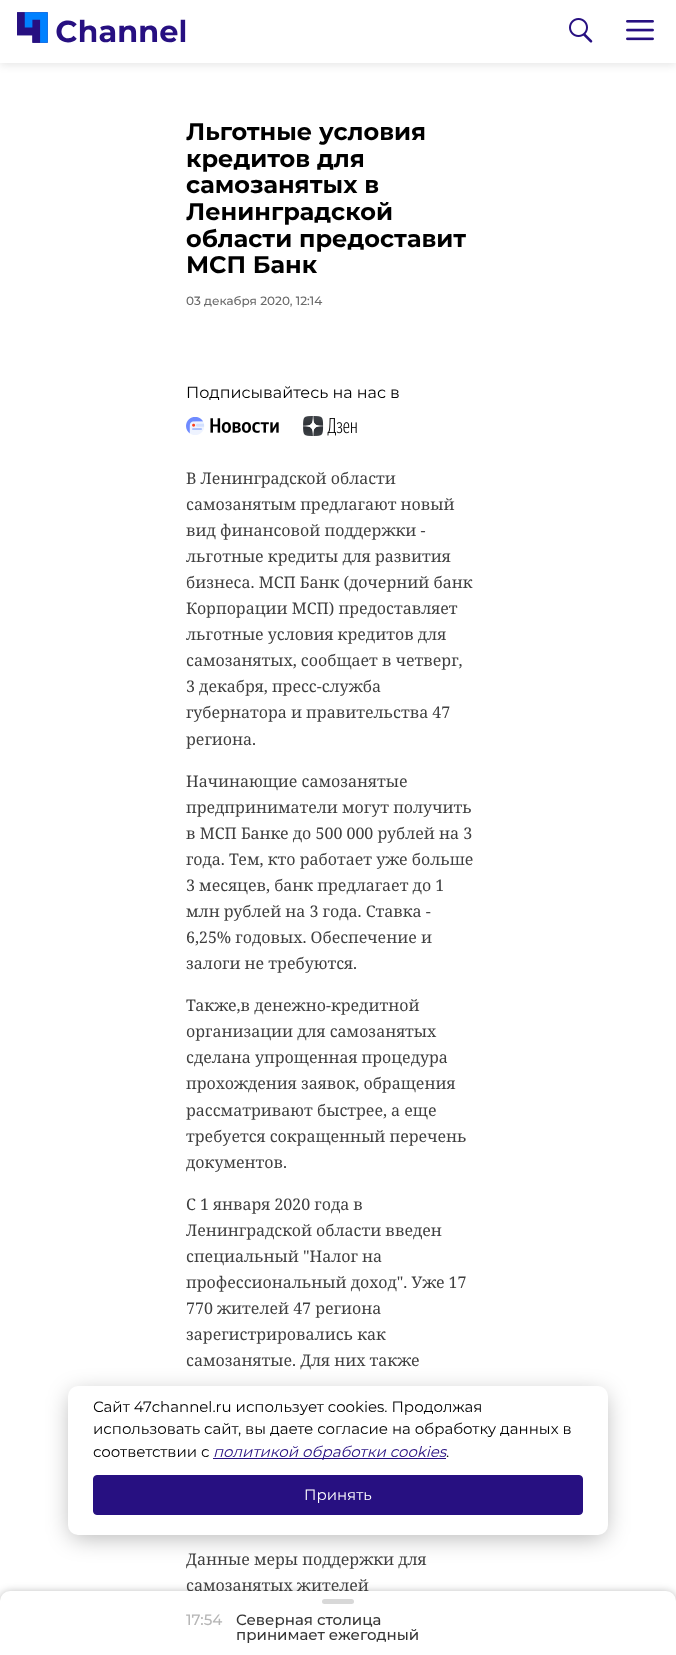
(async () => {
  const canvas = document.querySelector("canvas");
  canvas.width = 676;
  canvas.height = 1655;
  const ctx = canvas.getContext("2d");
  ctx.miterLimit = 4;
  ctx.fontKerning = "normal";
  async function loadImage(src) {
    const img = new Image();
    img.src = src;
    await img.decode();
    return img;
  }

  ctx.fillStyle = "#ffffff";
  ctx.fillRect(0, 0, 676, 1655);
  ctx.fillStyle = "rgba(0, 0, 0, 0.1)";
  ctx.filter = "blur(4px)";
  ctx.beginPath();
  ctx.rect(0, 2, 676, 63);
  ctx.fill();
  ctx.filter = "none";
  ctx.fillStyle = "#ffffff";
  ctx.fillRect(0, 0, 676, 63);
  ctx.drawImage(await loadImage("img/1.png"), 17, 12, 169, 31);
  ctx.drawImage(await loadImage("img/2.png"), 569, 18, 24, 25);
  ctx.drawImage(await loadImage("img/3.png"), 626, 20, 28, 21);
  ctx.drawImage(await loadImage("img/4.png"), 186, 417, 93, 18);
  ctx.drawImage(await loadImage("img/5.png"), 303, 416, 54, 20);
  ctx.fillStyle = "rgba(0, 0, 0, 0.3)";
  ctx.filter = "blur(11.5px)";
  ctx.beginPath();
  ctx.roundRect(71, 1394, 534, 143, 7);
  ctx.fill();
  ctx.filter = "none";
  ctx.fillStyle = "#ffffff";
  ctx.beginPath();
  ctx.roundRect(68, 1386, 540, 149, 10);
  ctx.fill();
  ctx.fillStyle = "#271081";
  ctx.fillRect(213, 1458, 233, 1);
  ctx.beginPath();
  ctx.roundRect(93.5, 1475.5, 489, 39, 3.5);
  ctx.fill();
  ctx.strokeStyle = "#271081";
  ctx.stroke();
  ctx.fillStyle = "rgba(0, 0, 0, 0.3)";
  ctx.filter = "blur(4px)";
  ctx.beginPath();
  ctx.roundRect(0, 1592, 676, 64, 10);
  ctx.fill();
  ctx.filter = "none";
  ctx.font = "bold 24px Montserrat";
  ctx.fillStyle = "#000000";
  for (const [text, x, y] of [
    ["Льготные условия", 186, 140],
    ["кредитов для", 186, 167],
    ["самозанятых в", 186, 193],
    ["Ленинградской", 186, 220],
    ["области предоставит", 186, 247],
    ["МСП Банк", 186, 273],
  ]) {
    ctx.fillText(text, x, y);
  }
  ctx.font = "500 12px Montserrat";
  ctx.fillStyle = "#6a6a6a";
  ctx.fillText("03 декабря 2020, 12:14", 186, 305);
  ctx.font = "16px Montserrat";
  ctx.fillStyle = "#000000";
  ctx.fillText("Подписывайтесь на нас в", 186, 398);
  ctx.font = "16px Noto Serif";
  ctx.fillStyle = "#3f3f3f";
  for (const [text, x, y] of [
    ["В Ленинградской области", 186, 484],
    ["самозанятым предлагают новый", 186, 510],
    ["вид финансовой поддержки -", 186, 536],
    ["льготные кредиты для развития", 186, 562],
    ["бизнеса. МСП Банк (дочерний банк", 186, 588],
    ["Корпорации МСП) предоставляет", 186, 614],
    ["льготные условия кредитов для", 186, 640],
    ["самозанятых, сообщает в четверг,", 186, 666],
    ["3 декабря, пресс-служба", 186, 692],
    ["губернатора и правительства 47", 186, 718],
    ["региона.", 186, 745],
    ["Начинающие самозанятые", 186, 787],
    ["предприниматели могут получить", 186, 813],
    ["в МСП Банке до 500 000 рублей на 3", 186, 839],
    ["года. Тем, кто работает уже больше", 186, 865],
    ["3 месяцев, банк предлагает до 1", 186, 891],
    ["млн рублей на 3 года. Ставка -", 186, 917],
    ["6,25% годовых. Обеспечение и", 186, 943],
    ["залоги не требуются.", 186, 969],
    ["Также,в денежно-кредитной", 186, 1011],
    ["организации для самозанятых", 186, 1037],
    ["сделана упрощенная процедура", 186, 1063],
    ["прохождения заявок, обращения", 186, 1089],
    ["рассматривают быстрее, а еще", 186, 1116],
    ["требуется сокращенный перечень", 186, 1142],
    ["документов.", 186, 1168],
    ["С 1 января 2020 года в", 186, 1210],
    ["Ленинградской области введен", 186, 1236],
    ["специальный \"Налог на", 186, 1262],
    ["профессиональный доход\". Уже 17", 186, 1288],
    ["770 жителей 47 региона", 186, 1314],
    ["зарегистрировались как", 186, 1340],
    ["самозанятые. Для них также", 186, 1366],
    ["Данные меры поддержки для", 186, 1565],
    ["самозанятых жителей", 186, 1591],
  ]) {
    ctx.fillText(text, x, y);
  }
  ctx.font = "15px Montserrat";
  ctx.fillStyle = "#000000";
  for (const [text, x, y] of [
    ["Сайт 47channel.ru использует cookies. Продолжая", 93, 1412],
    ["использовать сайт, вы даете согласие на обработку данных в", 93, 1434],
    ["соответствии с", 93, 1457],
  ]) {
    ctx.fillText(text, x, y);
  }
  ctx.font = "italic 15px Montserrat";
  ctx.fillStyle = "#271081";
  ctx.fillText("политикой обработки cookies", 213, 1457);
  ctx.font = "15px Montserrat";
  ctx.fillStyle = "#000000";
  ctx.fillText(".", 446, 1457);
  ctx.fillStyle = "#ffffff";
  ctx.fillText("Принять", 304, 1500);
  ctx.beginPath();
  ctx.roundRect(0, 1591, 676, 64, [10, 10, 0, 0]);
  ctx.fill();
  ctx.fillStyle = "#d8d8d8";
  ctx.beginPath();
  ctx.roundRect(322, 1599, 32, 5, 2.5);
  ctx.fill();
  ctx.font = "500 15px Montserrat";
  ctx.fillStyle = "#b6b6b6";
  ctx.fillText("17:54", 186, 1625);
  ctx.fillStyle = "#363636";
  ctx.fillText("Северная столица", 236, 1625);
  ctx.fillText("принимает ежегодный", 236, 1640);
})();
